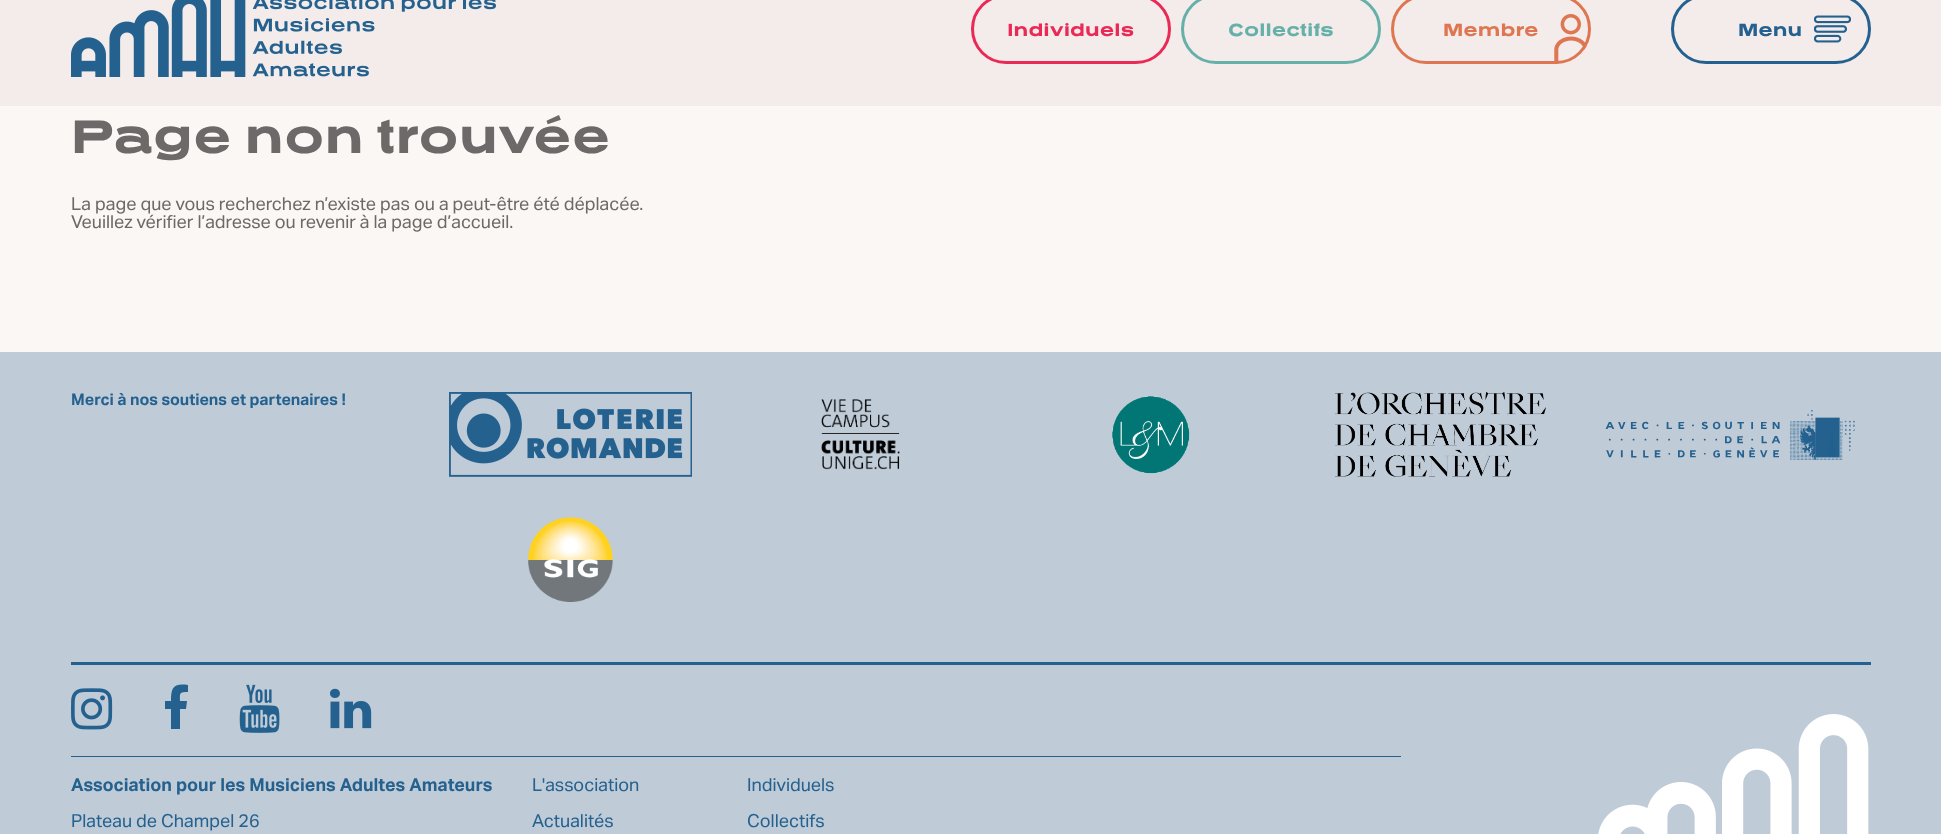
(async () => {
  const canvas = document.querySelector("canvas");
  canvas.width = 1941;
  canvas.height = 834;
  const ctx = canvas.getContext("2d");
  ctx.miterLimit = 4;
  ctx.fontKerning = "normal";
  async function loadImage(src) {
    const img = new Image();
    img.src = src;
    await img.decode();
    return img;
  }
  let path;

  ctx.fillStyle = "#faf7f5";
  ctx.fillRect(0, 0, 1941, 834);
  ctx.fillStyle = "#f3ecea";
  ctx.fillRect(0, 0, 1941, 106);
  ctx.drawImage(await loadImage("img/1.png"), 71, 0, 425, 77);
  ctx.beginPath();
  ctx.roundRect(972.5, -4.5, 197, 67, 33.5);
  ctx.strokeStyle = "#eb2957";
  ctx.lineWidth = 3;
  ctx.stroke();
  ctx.beginPath();
  ctx.roundRect(1182.5, -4.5, 197, 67, 33.5);
  ctx.strokeStyle = "#67b0aa";
  ctx.stroke();
  ctx.drawImage(await loadImage("img/2.png"), 1554, 14, 33, 50);
  ctx.beginPath();
  ctx.roundRect(1392.5, -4.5, 197, 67, 33.5);
  ctx.strokeStyle = "#de7652";
  ctx.stroke();
  ctx.drawImage(await loadImage("img/3.png"), 1814, 15, 37, 28);
  ctx.beginPath();
  ctx.roundRect(1672.5, -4.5, 197, 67, 33.5);
  ctx.strokeStyle = "#24618f";
  ctx.stroke();
  ctx.fillStyle = "#bfcbd7";
  ctx.fillRect(0, 352, 1941, 482);
  ctx.drawImage(await loadImage("img/4.png"), 449, 392, 243, 85);
  ctx.drawImage(await loadImage("img/5.png"), 821, 399, 79, 71);
  ctx.drawImage(await loadImage("img/6.png"), 1112, 396, 78, 78);
  ctx.drawImage(await loadImage("img/7.png"), 1335, 392, 211, 85);
  ctx.drawImage(await loadImage("img/8.png"), 1605, 410, 250, 50);
  ctx.drawImage(await loadImage("img/9.png"), 528, 517, 85, 85);
  ctx.fillStyle = "#24618f";
  ctx.fillRect(71, 662, 1800, 3);
  ctx.drawImage(await loadImage("img/10.png"), 71, 688, 42, 42);
  path = new Path2D("M188 685V692C179 692 180 693 180 701H187L186 709H180V729H171V709H165V701H171C171 688 173 683 188 685Z");
  ctx.fill(path);
  ctx.drawImage(await loadImage("img/11.png"), 239, 684, 41, 49);
  ctx.drawImage(await loadImage("img/12.png"), 330, 688, 42, 41);
  ctx.fillRect(71, 756, 1330, 1);
  ctx.drawImage(await loadImage("img/13.png"), 1598, 714, 271, 120);
  ctx.font = "18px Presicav";
  ctx.fillStyle = "#eb2957";
  ctx.fillText("Individuels", 1007, 36);
  ctx.fillStyle = "#67b0aa";
  ctx.fillText("Collectifs", 1228, 36);
  ctx.fillStyle = "#de7652";
  ctx.fillText("Membre", 1443, 36);
  ctx.fillStyle = "#24618f";
  ctx.fillText("Menu", 1738, 36);
  ctx.font = "48px Presicav";
  ctx.fillStyle = "#6d6969";
  ctx.fillText("Page non trouvée", 71, 153);
  ctx.font = "18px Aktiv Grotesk";
  ctx.fillText("La page que vous recherchez n’existe pas ou a peut-être été déplacée.", 71, 210);
  ctx.fillText("Veuillez vérifier l’adresse ou revenir à la page d’accueil.", 71, 228);
  ctx.font = "bold 16px Aktiv Grotesk";
  ctx.fillStyle = "#24618f";
  ctx.fillText("Merci à nos soutiens et partenaires !", 71, 405);
  ctx.font = "bold 18px Aktiv Grotesk";
  ctx.fillText("Association pour les Musiciens Adultes Amateurs", 71, 791);
  ctx.font = "18px Aktiv Grotesk";
  for (const [text, x, y] of [
    ["Plateau de Champel 26", 71, 827],
    ["L'association", 532, 791],
    ["Actualités", 532, 827],
    ["Individuels", 747, 791],
    ["Collectifs", 747, 827],
  ]) {
    ctx.fillText(text, x, y);
  }
})();
